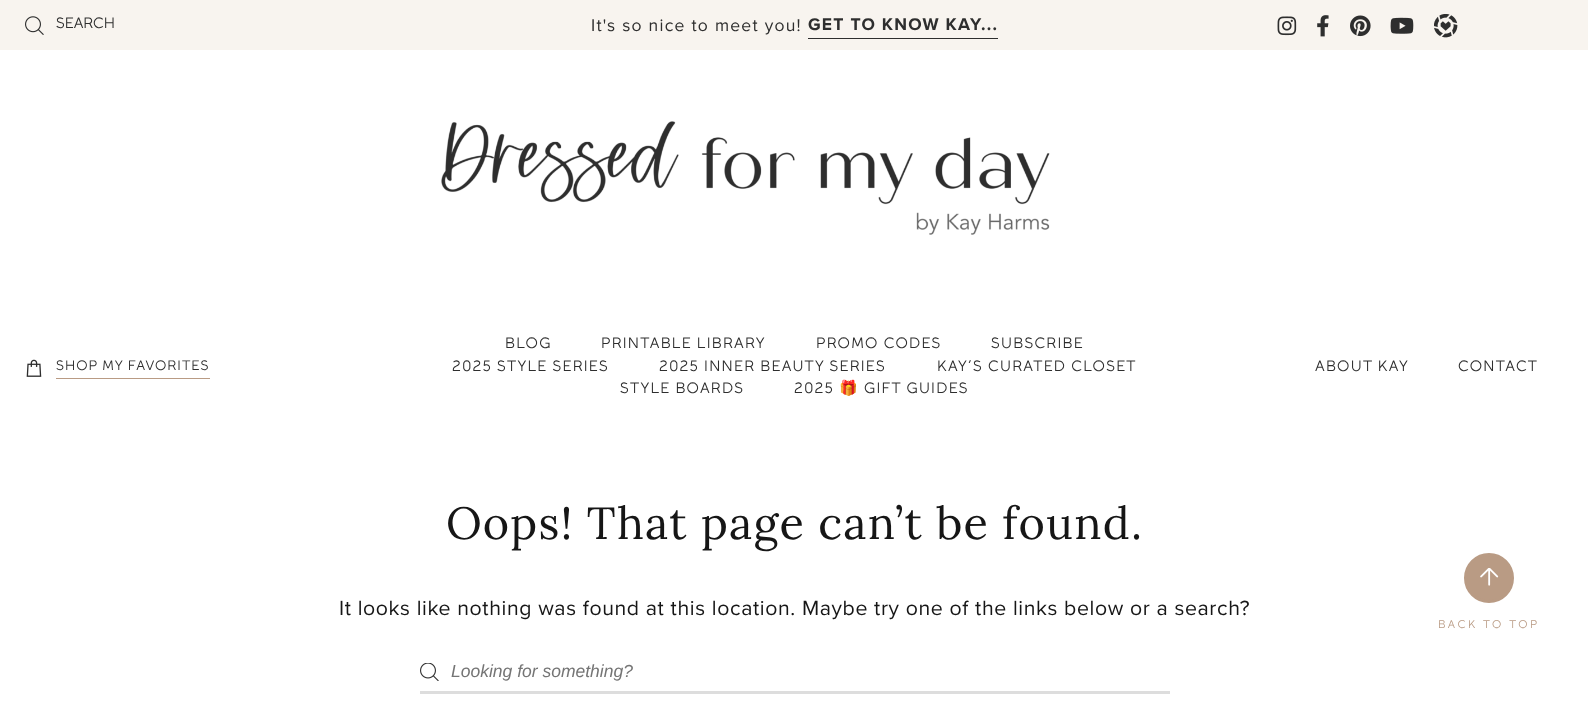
(async () => {
  const canvas = document.querySelector("canvas");
  canvas.width = 1588;
  canvas.height = 708;
  const ctx = canvas.getContext("2d");
  ctx.miterLimit = 4;
  ctx.fontKerning = "normal";
  async function loadImage(src) {
    const img = new Image();
    img.src = src;
    await img.decode();
    return img;
  }

  ctx.fillStyle = "#ffffff";
  ctx.fillRect(0, 0, 1588, 708);
  ctx.fillStyle = "#f8f4ef";
  ctx.fillRect(0, 0, 1588, 50);
  ctx.drawImage(await loadImage("img/1.png"), 25, 16, 19, 19);
  ctx.fillStyle = "#2e2e2e";
  ctx.fillRect(808, 38, 190, 1);
  ctx.drawImage(await loadImage("img/2.png"), 1277, 16, 20, 20);
  ctx.drawImage(await loadImage("img/3.png"), 1317, 15, 12, 22);
  ctx.drawImage(await loadImage("img/4.png"), 1350, 15, 21, 22);
  ctx.drawImage(await loadImage("img/5.png"), 1390, 17, 24, 17);
  ctx.drawImage(await loadImage("img/6.png"), 1434, 14, 24, 24);
  ctx.drawImage(await loadImage("img/7.png"), 441, 121, 609, 114);
  ctx.drawImage(await loadImage("img/8.png"), 26, 359, 16, 18);
  ctx.fillStyle = "#b99b84";
  ctx.fillRect(56, 378, 154, 1);
  ctx.drawImage(await loadImage("img/9.png"), 420, 663, 19, 18);
  ctx.fillStyle = "#dddddd";
  ctx.fillRect(420, 691, 750, 3);
  ctx.fillStyle = "#b99b84";
  ctx.beginPath();
  ctx.arc(1489, 578, 23.5, 0, Math.PI * 2);
  ctx.fill();
  ctx.strokeStyle = "#b99b84";
  ctx.lineWidth = 3;
  ctx.stroke();
  ctx.drawImage(await loadImage("img/10.png"), 1480, 568, 19, 18);
  ctx.font = "15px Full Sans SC";
  ctx.fillStyle = "#2e2e2e";
  ctx.fillText("SEARCH", 56, 28);
  ctx.letterSpacing = "1.25px";
  ctx.font = "17.5px Proxima Nova";
  ctx.fillText("It's so nice to meet you!", 591, 31);
  ctx.font = "bold 17.5px Proxima Nova";
  ctx.fillText("GET TO KNOW KAY...", 808, 30);
  ctx.letterSpacing = "1px";
  ctx.font = "13.75px Full Sans SC";
  ctx.fillText("SHOP MY FAVORITES", 56, 370);
  ctx.letterSpacing = "1.25px";
  ctx.font = "15px Full Sans SC";
  for (const [text, x, y] of [
    ["BLOG", 505, 348],
    ["PRINTABLE LIBRARY", 601, 348],
    ["PROMO CODES", 816, 348],
    ["SUBSCRIBE", 991, 348],
    ["2025 STYLE SERIES", 452, 371],
    ["2025 INNER BEAUTY SERIES", 659, 371],
    ["KAY’S CURATED CLOSET", 937, 371],
    ["STYLE BOARDS", 620, 393],
    ["2025", 794, 393],
  ]) {
    ctx.fillText(text, x, y);
  }
  ctx.font = "15px Noto Color Emoji";
  ctx.fillText("🎁", 839, 393);
  ctx.font = "15px Full Sans SC";
  for (const [text, x, y] of [
    ["GIFT GUIDES", 864, 393],
    ["ABOUT KAY", 1315, 371],
    ["CONTACT", 1458, 371],
  ]) {
    ctx.fillText(text, x, y);
  }
  ctx.font = "45px Lora";
  ctx.fillStyle = "#161616";
  ctx.fillText("Oops! That page can’t be found.", 446, 539);
  ctx.letterSpacing = "0.62px";
  ctx.font = "21.25px Proxima Nova";
  ctx.fillText("It looks like nothing was found at this location. Maybe try one of the links below or a search?", 339, 615);
  ctx.letterSpacing = "0px";
  ctx.font = "italic 17.5px Liberation Sans";
  ctx.fillStyle = "#757575";
  ctx.fillText("Looking for something?", 451, 677);
  ctx.letterSpacing = "2.5px";
  ctx.font = "11.25px Full Sans SC";
  ctx.fillStyle = "#b99b84";
  ctx.fillText("BACK TO TOP", 1438, 628);
})();
